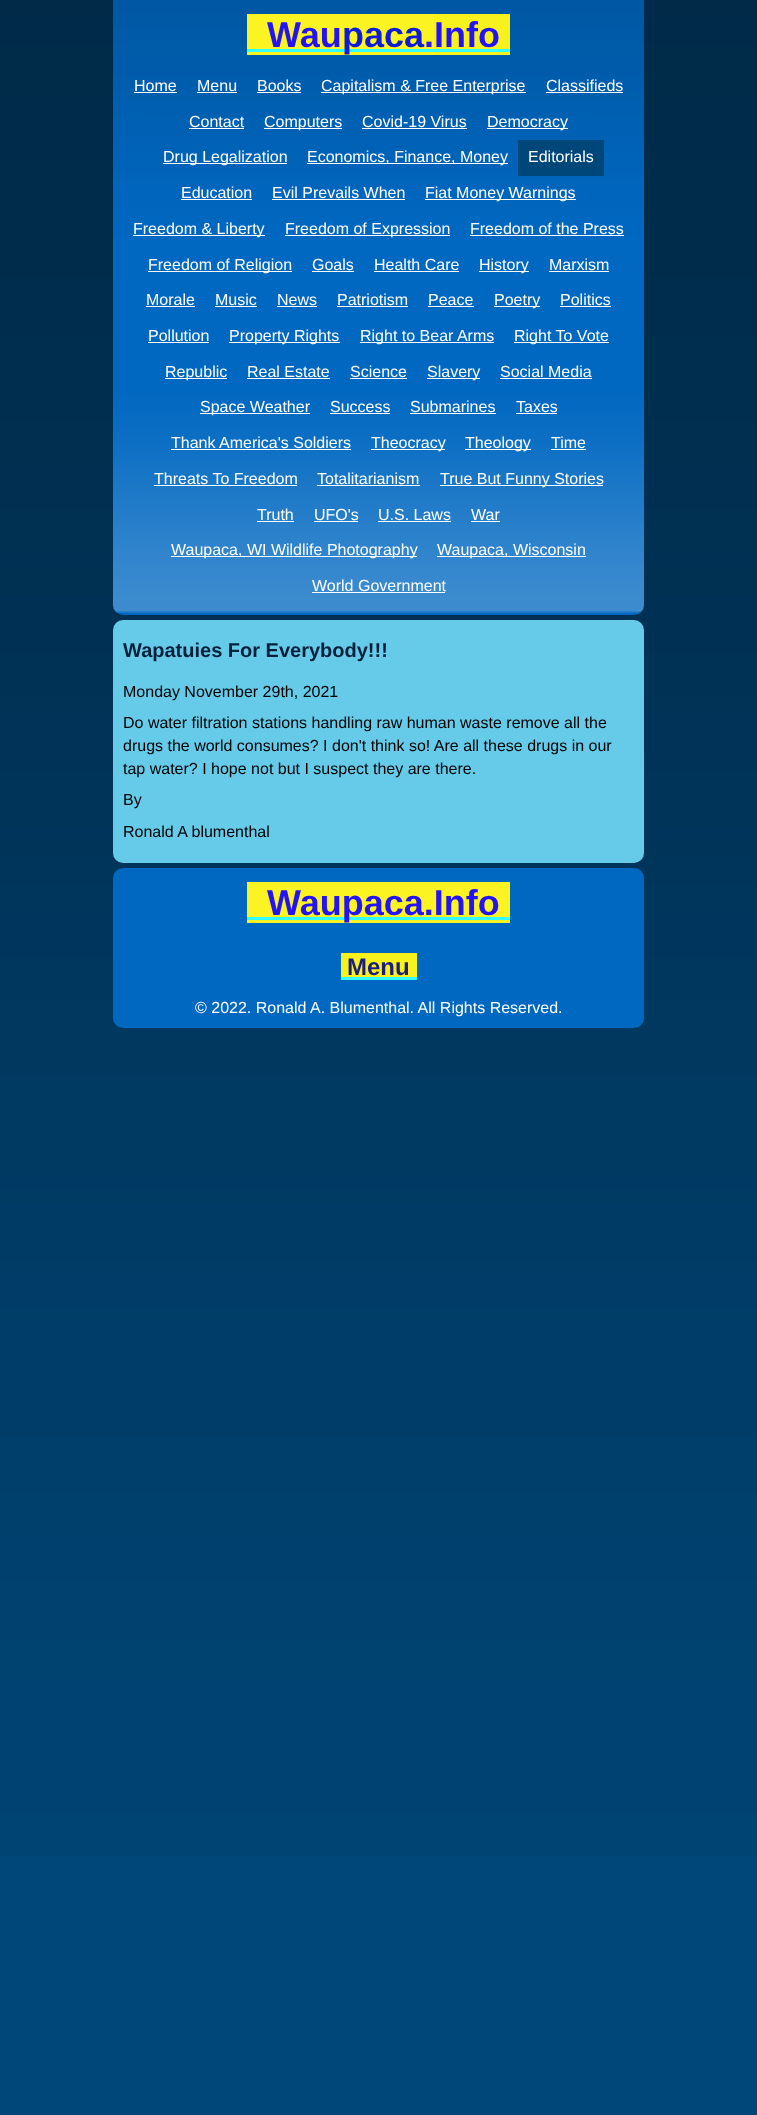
(async () => {
  const canvas = document.querySelector("canvas");
  canvas.width = 757;
  canvas.height = 2115;
  const ctx = canvas.getContext("2d");
  ctx.miterLimit = 4;
  ctx.fontKerning = "normal";
  async function loadImage(src) {
    const img = new Image();
    img.src = src;
    await img.decode();
    return img;
  }

  ctx.fillStyle = "#004779";
  ctx.fillRect(0, 0, 757, 2115);
  ctx.drawImage(await loadImage("img/1.png"), 0, 0, 757, 1856);
  ctx.fillStyle = "#0068c1";
  ctx.beginPath();
  ctx.roundRect(113, 0, 531, 615, [0, 0, 10, 10]);
  ctx.fill();
  ctx.drawImage(await loadImage("img/2.png"), 113, 0, 531, 613);
  for (const [x, y, w, h, color] of [
    [247, 14, 187, 41, "#fcf422"],
    [247, 49, 177, 3, "#33ffff"],
    [434, 14, 76, 41, "#f7f21d"],
    [434, 49, 76, 3, "#33ffff"],
    [134, 92, 43, 1, "#ffffff"],
    [197, 92, 40, 1, "#ffffff"],
    [257, 92, 44, 1, "#ffffff"],
    [321, 92, 205, 1, "#ffffff"],
    [546, 92, 77, 1, "#ffffff"],
    [189, 128, 55, 1, "#ffffff"],
    [264, 128, 78, 1, "#ffffff"],
    [362, 128, 105, 1, "#ffffff"],
    [487, 128, 81, 1, "#ffffff"],
    [163, 163, 124, 1, "#ffffff"],
    [307, 163, 201, 1, "#ffffff"],
    [518, 140, 86, 36, "#004779"],
    [181, 199, 71, 1, "#ffffff"],
    [272, 199, 133, 1, "#ffffff"],
    [425, 199, 151, 1, "#ffffff"],
    [133, 235, 132, 1, "#ffffff"],
    [285, 235, 165, 1, "#ffffff"],
    [470, 235, 154, 1, "#ffffff"],
    [148, 271, 144, 1, "#ffffff"],
    [312, 271, 42, 1, "#ffffff"],
    [374, 271, 85, 1, "#ffffff"],
    [479, 271, 50, 1, "#ffffff"],
    [549, 271, 60, 1, "#ffffff"],
    [146, 306, 49, 1, "#ffffff"],
    [215, 306, 42, 1, "#ffffff"],
    [277, 306, 40, 1, "#ffffff"],
    [337, 306, 71, 1, "#ffffff"],
    [428, 306, 46, 1, "#ffffff"],
    [494, 306, 46, 1, "#ffffff"],
    [560, 306, 51, 1, "#ffffff"],
    [148, 342, 61, 1, "#ffffff"],
    [229, 342, 111, 1, "#ffffff"],
    [360, 342, 134, 1, "#ffffff"],
    [514, 342, 95, 1, "#ffffff"],
    [165, 378, 62, 1, "#ffffff"],
    [247, 378, 83, 1, "#ffffff"],
    [350, 378, 57, 1, "#ffffff"],
    [427, 378, 53, 1, "#ffffff"],
    [500, 378, 92, 1, "#ffffff"],
    [200, 413, 110, 1, "#ffffff"],
    [330, 413, 60, 1, "#ffffff"],
    [410, 413, 86, 1, "#ffffff"],
    [516, 413, 41, 1, "#ffffff"],
    [171, 449, 180, 1, "#ffffff"],
    [371, 449, 74, 1, "#ffffff"],
    [465, 449, 66, 1, "#ffffff"],
    [551, 449, 35, 1, "#ffffff"],
    [154, 485, 143, 1, "#ffffff"],
    [317, 485, 103, 1, "#ffffff"],
    [440, 485, 163, 1, "#ffffff"],
    [257, 521, 37, 1, "#ffffff"],
    [314, 521, 44, 1, "#ffffff"],
    [378, 521, 73, 1, "#ffffff"],
    [471, 521, 29, 1, "#ffffff"],
    [171, 556, 246, 1, "#ffffff"],
    [437, 556, 149, 1, "#ffffff"],
    [312, 592, 133, 1, "#ffffff"],
  ]) {
    ctx.fillStyle = color;
    ctx.fillRect(x, y, w, h);
  }
  ctx.fillStyle = "#66cae9";
  ctx.beginPath();
  ctx.roundRect(113, 620, 531, 243, 10);
  ctx.fill();
  ctx.fillStyle = "#0068c1";
  ctx.beginPath();
  ctx.roundRect(113, 868, 531, 160, 10);
  ctx.fill();
  for (const [x, y, w, h, color] of [
    [247, 882, 263, 41, "#fcf422"],
    [247, 917, 263, 3, "#33ffff"],
    [341, 953, 6, 27, "#f7f21d"],
    [347, 953, 70, 24, "#f7f21d"],
    [341, 977, 76, 3, "#33ffff"],
  ]) {
    ctx.fillStyle = color;
    ctx.fillRect(x, y, w, h);
  }
  ctx.font = "bold 36px Liberation Sans";
  ctx.fillStyle = "#2412f8";
  ctx.fillText("Wau", 267, 47);
  ctx.fillStyle = "#0e1cd8";
  ctx.fillText("paca", 342, 47);
  ctx.fillStyle = "#2412f8";
  ctx.fillText(".", 424, 47);
  ctx.fillStyle = "#33ffff";
  ctx.fillRect(424, 49, 10, 3);
  ctx.fillStyle = "#2412f8";
  ctx.fillText("Info", 434, 47);
  ctx.font = "16px Liberation Sans";
  ctx.fillStyle = "#ffffff";
  for (const [text, x, y] of [
    ["Home", 134, 91],
    ["Menu", 197, 91],
    ["Books", 257, 91],
    ["Capitalism & Free Enterprise", 321, 91],
    ["Classifieds", 546, 91],
    ["Contact", 189, 127],
    ["Computers", 264, 127],
    ["Covid-19 Virus", 362, 127],
    ["Democracy", 487, 127],
    ["Drug Legalization", 163, 162],
    ["Economics, Finance, Money", 307, 162],
    ["Editorials", 528, 162],
    ["Education", 181, 198],
    ["Evil Prevails When", 272, 198],
    ["Fiat Money Warnings", 425, 198],
    ["Freedom & Liberty", 133, 234],
    ["Freedom of Expression", 285, 234],
    ["Freedom of the Press", 470, 234],
    ["Freedom of Religion", 148, 270],
    ["Goals", 312, 270],
    ["Health Care", 374, 270],
    ["History", 479, 270],
    ["Marxism", 549, 270],
    ["Morale", 146, 305],
    ["Music", 215, 305],
    ["News", 277, 305],
    ["Patriotism", 337, 305],
    ["Peace", 428, 305],
    ["Poetry", 494, 305],
    ["Politics", 560, 305],
    ["Pollution", 148, 341],
    ["Property Rights", 229, 341],
    ["Right to Bear Arms", 360, 341],
    ["Right To Vote", 514, 341],
    ["Republic", 165, 377],
    ["Real Estate", 247, 377],
    ["Science", 350, 377],
    ["Slavery", 427, 377],
    ["Social Media", 500, 377],
    ["Space Weather", 200, 412],
    ["Success", 330, 412],
    ["Submarines", 410, 412],
    ["Taxes", 516, 412],
    ["Thank America's Soldiers", 171, 448],
    ["Theocracy", 371, 448],
    ["Theology", 465, 448],
    ["Time", 551, 448],
    ["Threats To Freedom", 154, 484],
    ["Totalitarianism", 317, 484],
    ["True But Funny Stories", 440, 484],
    ["Truth", 257, 520],
    ["UFO's", 314, 520],
    ["U.S. Laws", 378, 520],
    ["War", 471, 520],
    ["Waupaca, WI Wildlife Photography", 171, 555],
    ["Waupaca, Wisconsin", 437, 555],
    ["World Government", 312, 591],
  ]) {
    ctx.fillText(text, x, y);
  }
  ctx.font = "bold 20px Liberation Sans";
  ctx.fillStyle = "#001f3a";
  ctx.fillText("Wapatuies For Everybody!!!", 123, 657);
  ctx.font = "16px Liberation Sans";
  ctx.fillStyle = "#000000";
  for (const [text, x, y] of [
    ["Monday November 29th, 2021", 123, 697],
    ["Do water filtration stations handling raw human waste remove all the", 123, 728],
    ["drugs the world consumes? I don't think so! Are all these drugs in our", 123, 751],
    ["tap water? I hope not but I suspect they are there.", 123, 774],
    ["By", 123, 805],
    ["Ronald A blumenthal", 123, 837],
  ]) {
    ctx.fillText(text, x, y);
  }
  ctx.font = "bold 36px Liberation Sans";
  ctx.fillStyle = "#2412f8";
  ctx.fillText("Waupaca.Info", 267, 915);
  ctx.font = "bold 24px Liberation Sans";
  ctx.fillStyle = "#1d1c82";
  ctx.fillText("Menu", 347, 975);
  ctx.font = "16px Liberation Sans";
  ctx.fillStyle = "#ffffff";
  ctx.fillText("© 2022. Ronald A. Blumenthal. All Rights Reserved.", 195, 1013);
})();
